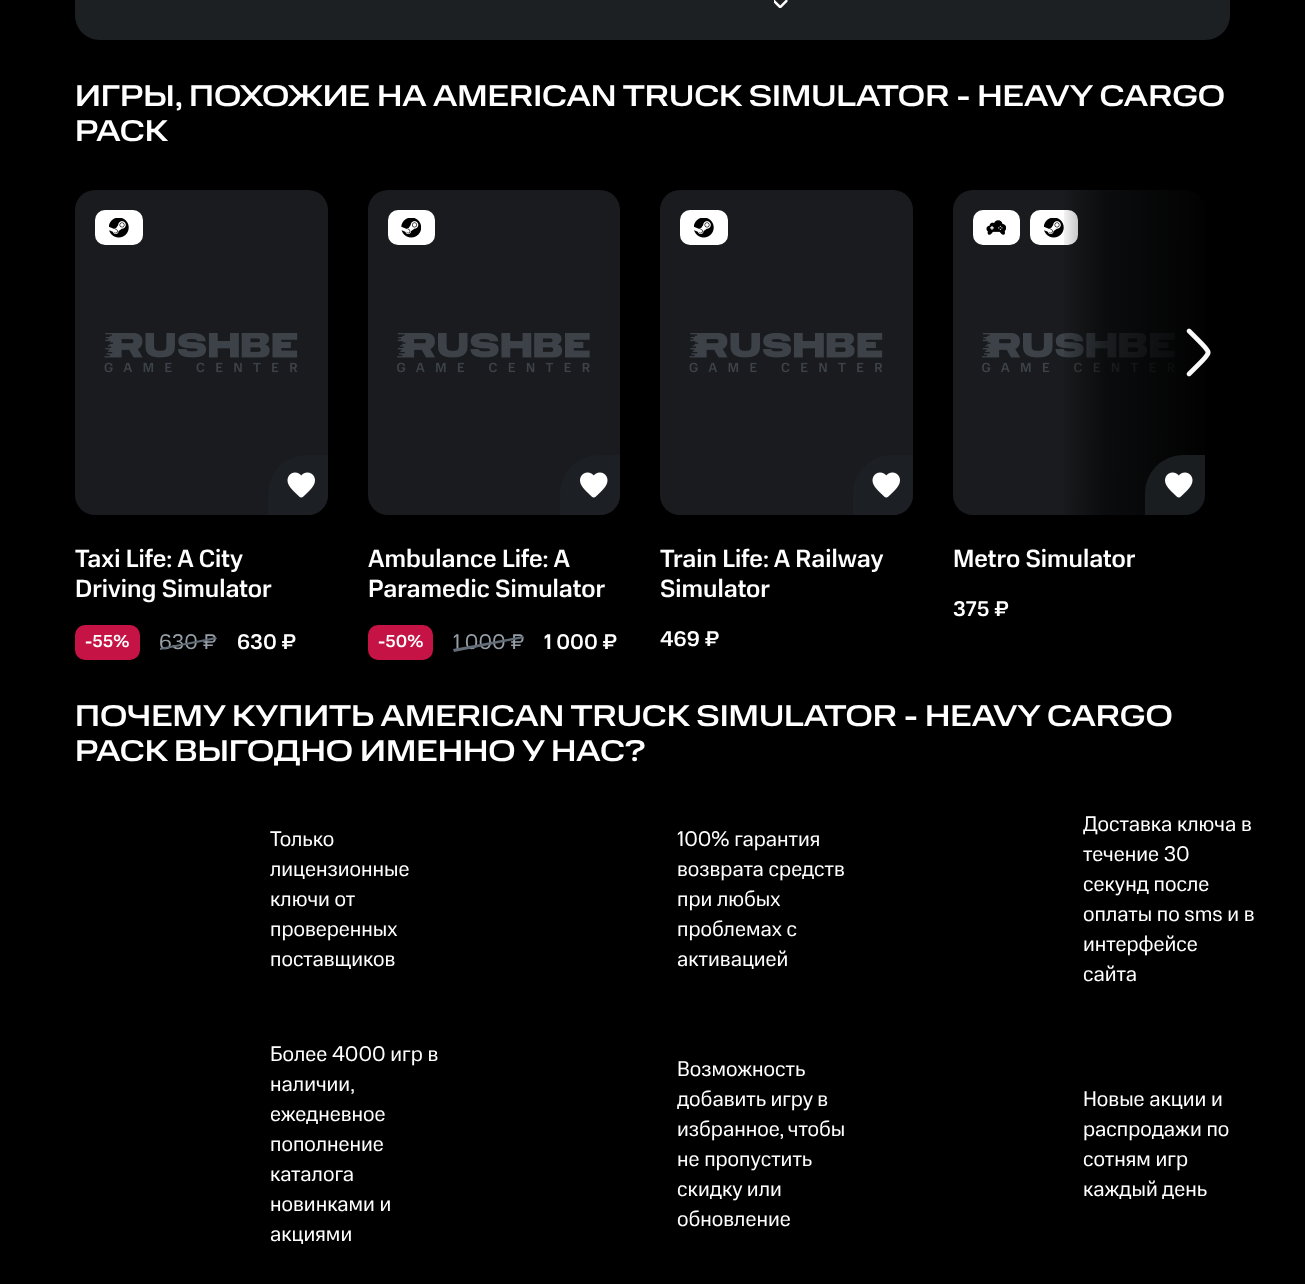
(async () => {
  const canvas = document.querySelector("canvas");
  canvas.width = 1305;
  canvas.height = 1284;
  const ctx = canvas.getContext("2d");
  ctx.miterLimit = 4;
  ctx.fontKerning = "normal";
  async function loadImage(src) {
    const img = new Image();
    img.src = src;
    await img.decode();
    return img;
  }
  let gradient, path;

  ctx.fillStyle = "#000000";
  ctx.fillRect(0, 0, 1305, 1284);
  ctx.fillStyle = "#1d2023";
  path = new Path2D("M75-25H1230V15C1230 29 1219 40 1205 40H100C86 40 75 29 75 15Z");
  ctx.fill(path);
  ctx.drawImage(await loadImage("img/1.png"), 774, 0, 14, 8);
  ctx.fillStyle = "#191b1e";
  ctx.beginPath();
  ctx.roundRect(953, 190, 252, 325, 20);
  ctx.fill();
  ctx.drawImage(await loadImage("img/6.png"), 982, 333, 193, 40);
  ctx.fillStyle = "#ffffff";
  ctx.beginPath();
  ctx.roundRect(1030, 210, 48, 35, 10);
  ctx.fill();
  gradient = ctx.createLinearGradient(1231, 353, 1059, 352);
  gradient.addColorStop(0.07, "#000000");
  gradient.addColorStop(0.72, "rgba(0, 0, 0, 0.57)");
  gradient.addColorStop(1, "rgba(0, 0, 0, 0)");
  ctx.fillStyle = gradient;
  ctx.beginPath();
  ctx.roundRect(1064, 190, 166, 325, [0, 18, 18, 0]);
  ctx.fill();
  ctx.drawImage(await loadImage("img/2.png"), 1186, 328, 25, 49);
  ctx.fillStyle = "#191b1e";
  ctx.beginPath();
  ctx.roundRect(75, 190, 253, 325, 20);
  ctx.fill();
  ctx.drawImage(await loadImage("img/3.png"), 104, 333, 194, 40);
  ctx.fillStyle = "#ffffff";
  ctx.beginPath();
  ctx.roundRect(95, 210, 48, 35, 10);
  ctx.fill();
  ctx.drawImage(await loadImage("img/4.png"), 109, 218, 20, 20);
  ctx.fillStyle = "rgba(29, 32, 35, 0.9)";
  ctx.beginPath();
  ctx.roundRect(268, 455, 60, 60, [38, 0, 20, 0]);
  ctx.fill();
  ctx.drawImage(await loadImage("img/5.png"), 287, 472, 28, 26);
  ctx.fillStyle = "#c51345";
  ctx.beginPath();
  ctx.roundRect(75, 625, 65, 35, 10);
  ctx.fill();
  ctx.fillStyle = "#191b1e";
  ctx.beginPath();
  ctx.roundRect(368, 190, 252, 325, 20);
  ctx.fill();
  ctx.drawImage(await loadImage("img/6.png"), 397, 333, 193, 40);
  ctx.fillStyle = "#ffffff";
  ctx.beginPath();
  ctx.roundRect(388, 210, 47, 35, 10);
  ctx.fill();
  ctx.drawImage(await loadImage("img/7.png"), 401, 218, 20, 20);
  ctx.fillStyle = "rgba(29, 32, 35, 0.9)";
  ctx.beginPath();
  ctx.roundRect(560, 455, 60, 60, [38, 0, 20, 0]);
  ctx.fill();
  ctx.drawImage(await loadImage("img/8.png"), 580, 472, 28, 26);
  ctx.fillStyle = "#c51345";
  ctx.beginPath();
  ctx.roundRect(368, 625, 65, 35, 10);
  ctx.fill();
  ctx.fillStyle = "#191b1e";
  ctx.beginPath();
  ctx.roundRect(660, 190, 253, 325, 20);
  ctx.fill();
  ctx.drawImage(await loadImage("img/3.png"), 689, 333, 194, 40);
  ctx.fillStyle = "#ffffff";
  ctx.beginPath();
  ctx.roundRect(680, 210, 48, 35, 10);
  ctx.fill();
  ctx.drawImage(await loadImage("img/4.png"), 694, 218, 20, 20);
  ctx.fillStyle = "rgba(29, 32, 35, 0.9)";
  ctx.beginPath();
  ctx.roundRect(853, 455, 60, 60, [38, 0, 20, 0]);
  ctx.fill();
  ctx.drawImage(await loadImage("img/5.png"), 872, 472, 28, 26);
  ctx.fillStyle = "#ffffff";
  ctx.beginPath();
  ctx.roundRect(973, 210, 47, 35, 10);
  ctx.fill();
  ctx.drawImage(await loadImage("img/9.png"), 986, 220, 20, 15);
  ctx.drawImage(await loadImage("img/4.png"), 1044, 218, 20, 20);
  ctx.fillStyle = "rgba(29, 32, 35, 0.9)";
  ctx.beginPath();
  ctx.roundRect(1145, 455, 60, 60, [38, 0, 20, 0]);
  ctx.fill();
  ctx.drawImage(await loadImage("img/10.png"), 1165, 472, 28, 26);
  ctx.font = "500 30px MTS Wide";
  ctx.fillStyle = "#ffffff";
  ctx.fillText("ИГРЫ, ПОХОЖИЕ НА AMERICAN TRUCK SIMULATOR - HEAVY CARGO", 75, 106);
  ctx.fillText("PACK", 75, 141);
  ctx.font = "500 25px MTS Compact";
  ctx.fillText("Taxi Life: A City", 75, 567);
  ctx.fillText("Driving Simulator", 75, 597);
  ctx.font = "500 17.5px MTS Compact";
  ctx.fillText("-55%", 85, 647);
  ctx.font = "21.25px MTS Compact";
  ctx.fillStyle = "#969fa8";
  ctx.fillText("630 ₽", 159, 649);
  ctx.fillStyle = "#626c77";
  path = new Path2D("M160 648L216 637L217 639L160 650Z");
  ctx.fill(path);
  ctx.font = "500 21.25px MTS Compact";
  ctx.fillStyle = "#ffffff";
  ctx.fillText("630 ₽", 237, 649);
  ctx.font = "500 25px MTS Compact";
  ctx.fillText("Ambulance Life: A", 368, 567);
  ctx.fillText("Paramedic Simulator", 368, 597);
  ctx.font = "500 17.5px MTS Compact";
  ctx.fillText("-50%", 378, 647);
  ctx.font = "21.25px MTS Compact";
  ctx.fillStyle = "#969fa8";
  ctx.fillText("1 000 ₽", 453, 649);
  ctx.fillStyle = "#626c77";
  path = new Path2D("M453 649L523 636L524 638L454 652Z");
  ctx.fill(path);
  ctx.font = "500 21.25px MTS Compact";
  ctx.fillStyle = "#ffffff";
  ctx.fillText("1 000 ₽", 544, 649);
  ctx.font = "500 25px MTS Compact";
  ctx.fillText("Train Life: A Railway", 660, 567);
  ctx.fillText("Simulator", 660, 597);
  ctx.font = "500 21.25px MTS Compact";
  ctx.fillText("469 ₽", 660, 646);
  ctx.font = "500 25px MTS Compact";
  ctx.fillText("Metro Simulator", 953, 567);
  ctx.font = "500 21.25px MTS Compact";
  ctx.fillText("375 ₽", 953, 616);
  ctx.font = "500 30px MTS Wide";
  for (const [text, x, y] of [
    ["ПОЧЕМУ КУПИТЬ AMERICAN TRUCK SIMULATOR - HEAVY CARGO", 75, 726],
    ["PACK", 75, 761],
    ["ВЫГОДНО ИМЕННО У НАС?", 174, 761],
  ]) {
    ctx.fillText(text, x, y);
  }
  ctx.font = "21.25px MTS Compact";
  for (const [text, x, y] of [
    ["Только", 270, 846],
    ["лицензионные", 270, 876],
    ["ключи от", 270, 906],
    ["проверенных", 270, 936],
    ["поставщиков", 270, 966],
    ["100% гарантия", 677, 846],
    ["возврата средств", 677, 876],
    ["при любых", 677, 906],
    ["проблемах с", 677, 936],
    ["активацией", 677, 966],
    ["Доставка ключа в", 1083, 831],
    ["течение 30", 1083, 861],
    ["секунд после", 1083, 891],
    ["оплаты по sms и в", 1083, 921],
    ["интерфейсе", 1083, 951],
    ["сайта", 1083, 981],
    ["Более 4000 игр в", 270, 1061],
    ["наличии,", 270, 1091],
    ["ежедневное", 270, 1121],
    ["пополнение", 270, 1151],
    ["каталога", 270, 1181],
    ["новинками и", 270, 1211],
    ["акциями", 270, 1241],
    ["Возможность", 677, 1076],
    ["добавить игру в", 677, 1106],
    ["избранное, чтобы", 677, 1136],
    ["не пропустить", 677, 1166],
    ["скидку или", 677, 1196],
    ["обновление", 677, 1226],
    ["Новые акции и", 1083, 1106],
    ["распродажи по", 1083, 1136],
    ["сотням игр", 1083, 1166],
    ["каждый день", 1083, 1196],
  ]) {
    ctx.fillText(text, x, y);
  }
})();
